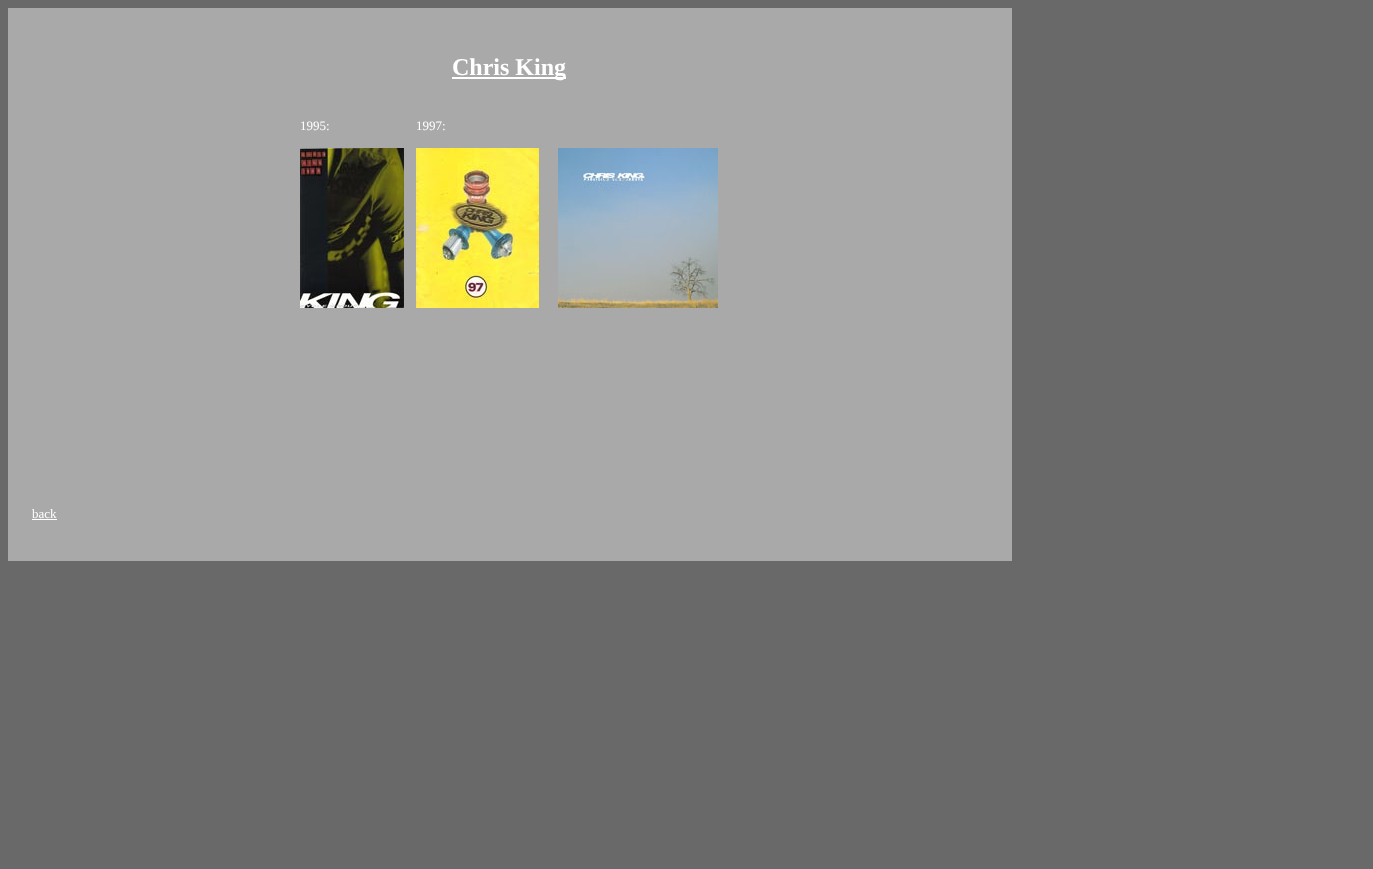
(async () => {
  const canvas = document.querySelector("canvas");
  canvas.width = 1373;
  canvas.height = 869;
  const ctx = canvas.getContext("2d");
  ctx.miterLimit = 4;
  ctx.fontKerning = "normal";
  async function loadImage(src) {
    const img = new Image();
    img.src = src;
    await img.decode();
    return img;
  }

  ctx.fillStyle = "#696969";
  ctx.fillRect(0, 0, 1373, 869);
  ctx.fillStyle = "#a9a9a9";
  ctx.fillRect(8, 8, 1004, 553);
  ctx.fillStyle = "#ffffff";
  ctx.fillRect(452, 77, 114, 2);
  ctx.drawImage(await loadImage("img/1.png"), 300, 148, 104, 160);
  ctx.drawImage(await loadImage("img/2.png"), 416, 148, 123, 160);
  ctx.drawImage(await loadImage("img/3.png"), 558, 148, 160, 160);
  ctx.fillRect(32, 519, 25, 1);
  ctx.font = "bold 24px Liberation Serif";
  ctx.fillText("Chris King", 452, 75);
  ctx.font = "13px Liberation Serif";
  for (const [text, x, y] of [
    ["1995:", 300, 130],
    ["1997:", 416, 130],
    ["back", 32, 518],
  ]) {
    ctx.fillText(text, x, y);
  }
})();
